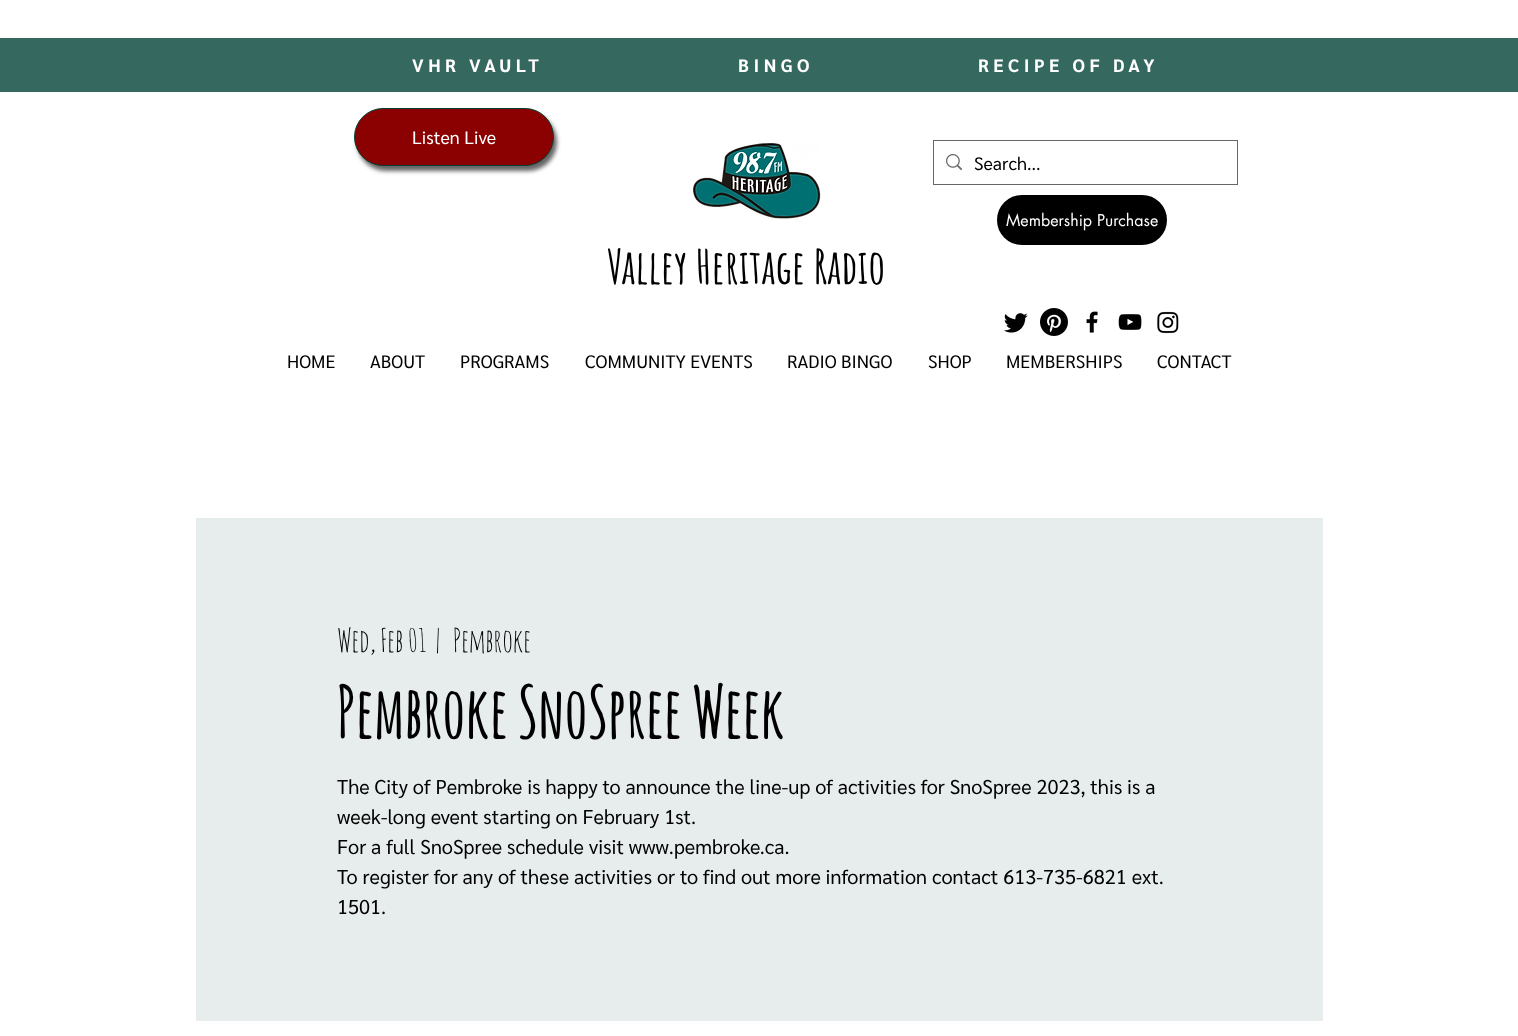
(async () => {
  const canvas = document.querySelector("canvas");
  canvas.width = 1518;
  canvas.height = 1036;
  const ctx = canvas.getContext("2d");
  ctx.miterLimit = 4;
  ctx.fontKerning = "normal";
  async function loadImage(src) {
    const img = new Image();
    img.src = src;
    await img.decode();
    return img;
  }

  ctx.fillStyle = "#ffffff";
  ctx.fillRect(0, 0, 1518, 1036);
  ctx.fillStyle = "#35685e";
  ctx.fillRect(0, 38, 1518, 54);
  ctx.fillStyle = "rgba(0, 0, 0, 0.6)";
  ctx.filter = "blur(2px)";
  ctx.beginPath();
  ctx.roundRect(357, 113, 200, 58, 29);
  ctx.fill();
  ctx.filter = "none";
  ctx.fillStyle = "#8b0000";
  ctx.beginPath();
  ctx.roundRect(354.5, 108.5, 199, 57, 28.5);
  ctx.fill();
  ctx.strokeStyle = "#014235";
  ctx.stroke();
  ctx.drawImage(await loadImage("img/1.png"), 693, 143, 128, 77);
  ctx.strokeStyle = "#666666";
  ctx.strokeRect(933.5, 140.5, 304, 44);
  ctx.drawImage(await loadImage("img/2.png"), 946, 154, 16, 17);
  ctx.fillStyle = "#000000";
  ctx.beginPath();
  ctx.roundRect(998, 196, 168, 48, 24);
  ctx.fill();
  ctx.strokeStyle = "#000000";
  ctx.lineWidth = 2;
  ctx.stroke();
  ctx.drawImage(await loadImage("img/3.png"), 1004, 313, 24, 20);
  ctx.drawImage(await loadImage("img/4.png"), 1040, 308, 28, 28);
  ctx.drawImage(await loadImage("img/5.png"), 1086, 311, 12, 22);
  ctx.drawImage(await loadImage("img/6.png"), 1118, 314, 24, 16);
  ctx.drawImage(await loadImage("img/7.png"), 1157, 311, 22, 23);
  ctx.fillStyle = "#e6edec";
  ctx.fillRect(196, 518, 1127, 503);
  ctx.letterSpacing = "4.5px";
  ctx.font = "bold 18px Sarabun";
  ctx.fillStyle = "#ffffff";
  for (const [text, x, y] of [
    ["VHR VAULT", 412, 72],
    ["BINGO", 738, 72],
    ["RECIPE OF DAY", 978, 72],
  ]) {
    ctx.fillText(text, x, y);
  }
  ctx.letterSpacing = "0px";
  ctx.font = "18px Sarabun";
  ctx.fillText("Listen Live", 412, 144);
  ctx.fillStyle = "#000000";
  ctx.fillText("Search...", 974, 170);
  ctx.font = "16px futura";
  ctx.fillStyle = "#ffffff";
  ctx.fillText("Membership Purchase", 1006, 226);
  ctx.font = "bold 47px 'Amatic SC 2'";
  ctx.fillStyle = "#000000";
  ctx.fillText("Valley Heritage Radio", 607, 284);
  ctx.font = "18px Sarabun";
  for (const [text, x, y] of [
    ["HOME", 287, 368],
    ["ABOUT", 370, 368],
    ["PROGRAMS", 460, 368],
    ["COMMUNITY EVENTS", 585, 368],
    ["RADIO BINGO", 787, 368],
    ["SHOP", 928, 368],
    ["MEMBERSHIPS", 1006, 368],
    ["CONTACT", 1157, 368],
  ]) {
    ctx.fillText(text, x, y);
  }
  ctx.font = "32px Amatic SC";
  for (const [text, x, y] of [
    ["Wed, Feb 01", 337, 652],
    ["|", 435, 652],
    ["Pembroke", 453, 652],
  ]) {
    ctx.fillText(text, x, y);
  }
  ctx.font = "bold 71px Amatic SC";
  ctx.fillText("Pembroke SnoSpree Week", 337, 738);
  ctx.font = "20px Sarabun";
  for (const [text, x, y] of [
    ["The City of Pembroke is happy to announce the line-up of activities for SnoSpree 2023, this is a", 337, 794],
    ["week-long event starting on February 1st.", 337, 824],
    ["For a full SnoSpree schedule visit www.pembroke.ca.", 337, 854],
    ["To register for any of these activities or to find out more information contact 613-735-6821 ext.", 337, 884],
    ["1501.", 337, 914],
  ]) {
    ctx.fillText(text, x, y);
  }
})();
